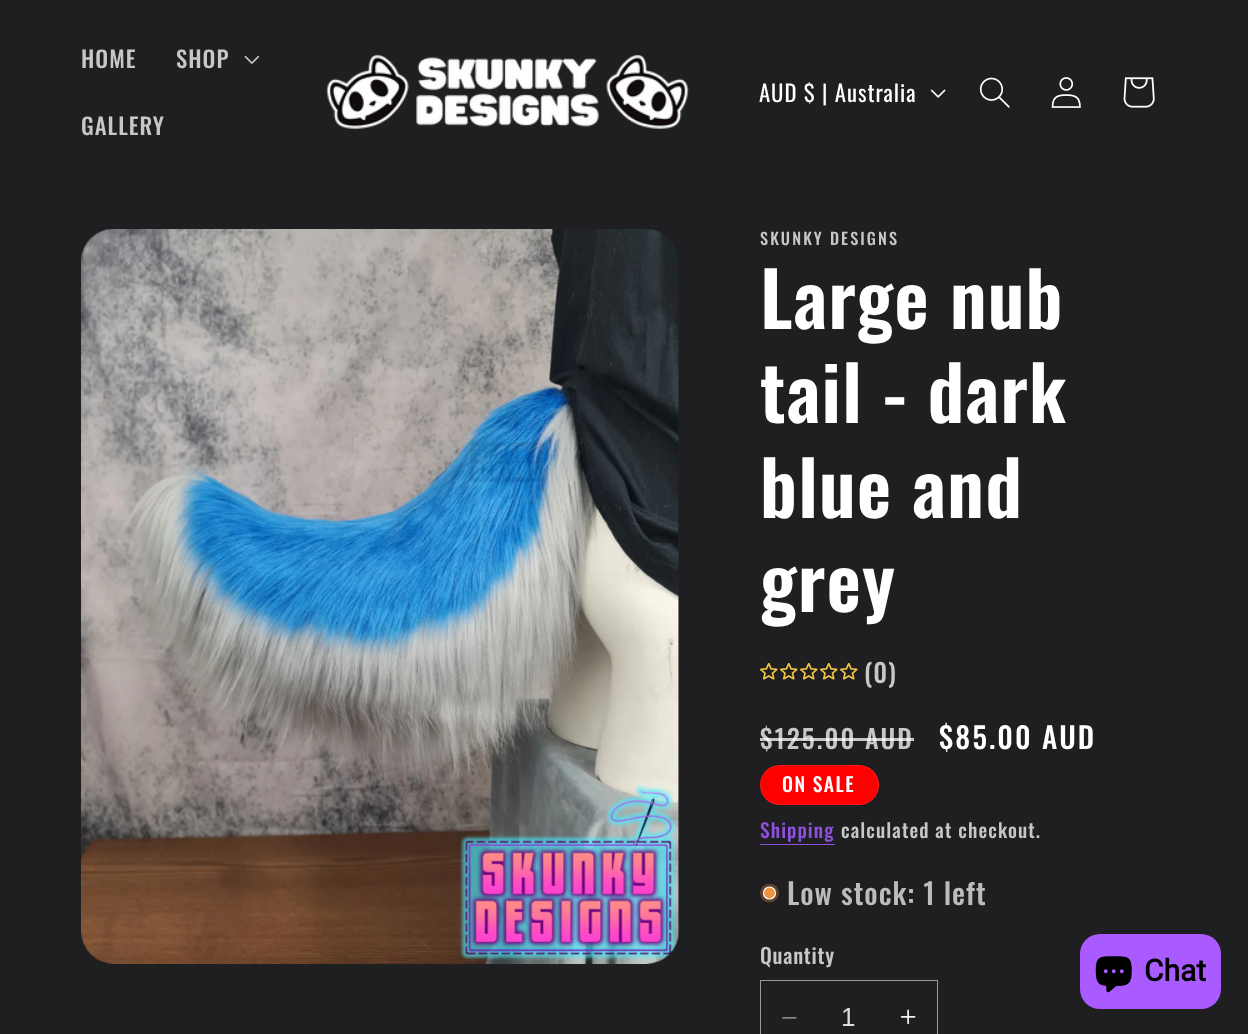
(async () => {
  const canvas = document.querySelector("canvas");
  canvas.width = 1248;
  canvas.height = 1034;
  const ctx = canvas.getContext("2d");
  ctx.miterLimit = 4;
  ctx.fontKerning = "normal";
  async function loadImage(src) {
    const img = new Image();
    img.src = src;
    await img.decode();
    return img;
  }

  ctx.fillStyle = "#1f1f21";
  ctx.fillRect(0, 0, 1248, 1034);
  ctx.drawImage(await loadImage("img/1.png"), 244, 55, 16, 9);
  ctx.drawImage(await loadImage("img/2.png"), 326, 54, 363, 75);
  ctx.drawImage(await loadImage("img/3.png"), 930, 89, 16, 9);
  ctx.drawImage(await loadImage("img/4.png"), 979, 77, 31, 31);
  ctx.drawImage(await loadImage("img/5.png"), 1051, 77, 30, 31);
  ctx.drawImage(await loadImage("img/6.png"), 1123, 77, 32, 31);
  ctx.drawImage(await loadImage("img/7.png"), 81, 229, 598, 735);
  ctx.drawImage(await loadImage("img/8.png"), 760, 663, 18, 17);
  ctx.drawImage(await loadImage("img/8.png"), 780, 663, 18, 17);
  ctx.drawImage(await loadImage("img/8.png"), 800, 663, 18, 17);
  ctx.drawImage(await loadImage("img/8.png"), 820, 663, 18, 17);
  ctx.drawImage(await loadImage("img/8.png"), 840, 663, 18, 17);
  ctx.fillStyle = "#ff0000";
  ctx.beginPath();
  ctx.roundRect(760, 765, 119, 40, 20);
  ctx.fill();
  ctx.beginPath();
  ctx.roundRect(760.5, 765.5, 118, 39, 19.5);
  ctx.strokeStyle = "rgba(255, 255, 255, 0.1)";
  ctx.stroke();
  ctx.fillStyle = "#8e51de";
  ctx.fillRect(760, 844, 75, 1);
  ctx.save();
  ctx.beginPath();
  ctx.rect(760, 884, 19, 19);
  ctx.clip();
  ctx.fillStyle = "#5d422b";
  ctx.beginPath();
  ctx.arc(769.5, 893, 9.5, 0, Math.PI * 2);
  ctx.fill();
  ctx.restore();
  ctx.fillStyle = "#ee9441";
  ctx.beginPath();
  ctx.arc(769.5, 893, 6, 0, Math.PI * 2);
  ctx.fill();
  ctx.strokeStyle = "#ffffff";
  ctx.lineWidth = 1.2;
  ctx.stroke();
  ctx.drawImage(await loadImage("img/9.png"), 782, 1017, 15, 2);
  ctx.drawImage(await loadImage("img/10.png"), 900, 1009, 16, 16);
  ctx.strokeStyle = "#9a9a9b";
  ctx.lineWidth = 1;
  ctx.strokeRect(760.5, 980.5, 177, 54);
  ctx.fillStyle = "#a95bff";
  ctx.beginPath();
  ctx.roundRect(1080, 934, 141, 75, 20);
  ctx.fill();
  ctx.drawImage(await loadImage("img/11.png"), 1095, 956, 37, 37);
  ctx.letterSpacing = "1px";
  ctx.font = "500 22.75px Oswald";
  ctx.fillStyle = "#c7c7c8";
  for (const [text, x, y] of [
    ["HOME", 81, 68],
    ["SHOP", 176, 68],
    ["GALLERY", 81, 135],
  ]) {
    ctx.fillText(text, x, y);
  }
  ctx.font = "22.75px Oswald";
  ctx.fillStyle = "#ffffff";
  ctx.fillText("AUD $ | Australia", 759, 102);
  ctx.letterSpacing = "2.1px";
  ctx.font = "500 16.25px Oswald";
  ctx.fillStyle = "#c7c7c8";
  ctx.fillText("SKUNKY DESIGNS", 760, 245);
  ctx.letterSpacing = "1.1px";
  ctx.font = "600 75px Oswald";
  ctx.fillStyle = "#ffffff";
  for (const [text, x, y] of [
    ["Large nub", 760, 329],
    ["tail - dark", 760, 423],
    ["blue and", 760, 518],
    ["grey", 760, 612],
  ]) {
    ctx.fillText(text, x, y);
  }
  ctx.letterSpacing = "1px";
  ctx.font = "500 26px Oswald";
  ctx.fillStyle = "#c7c7c8";
  ctx.fillText("(0)", 864, 683);
  ctx.letterSpacing = "2.1px";
  ctx.fillText("$125.00 AUD", 760, 749);
  ctx.fillStyle = "rgba(255, 255, 255, 0.75)";
  ctx.fillRect(760, 738, 154, 3);
  ctx.font = "500 29.25px Oswald";
  ctx.fillStyle = "#ffffff";
  ctx.fillText("$85.00 AUD", 939, 749);
  ctx.letterSpacing = "1.5px";
  ctx.font = "500 19.5px Oswald";
  ctx.fillText("ON SALE", 782, 792);
  ctx.letterSpacing = "1.1px";
  ctx.fillStyle = "#8e51de";
  ctx.fillText("Shipping", 760, 838);
  ctx.fillStyle = "#c7c7c8";
  ctx.fillText("calculated at checkout.", 841, 838);
  ctx.letterSpacing = "1px";
  ctx.font = "500 29.25px Oswald";
  ctx.fillStyle = "#bcbcbc";
  ctx.fillText("Low stock: 1 left", 787, 905);
  ctx.letterSpacing = "0.75px";
  ctx.font = "500 21px Oswald";
  ctx.fillStyle = "#c7c7c8";
  ctx.fillText("Quantity", 760, 964);
  ctx.letterSpacing = "0px";
  ctx.font = "26px Liberation Sans";
  ctx.fillStyle = "#ddddde";
  ctx.fillText("1", 841, 1026);
  ctx.font = "bold 30px Roboto";
  ctx.fillStyle = "#000000";
  ctx.fillText("Chat", 1144, 981);
})();
